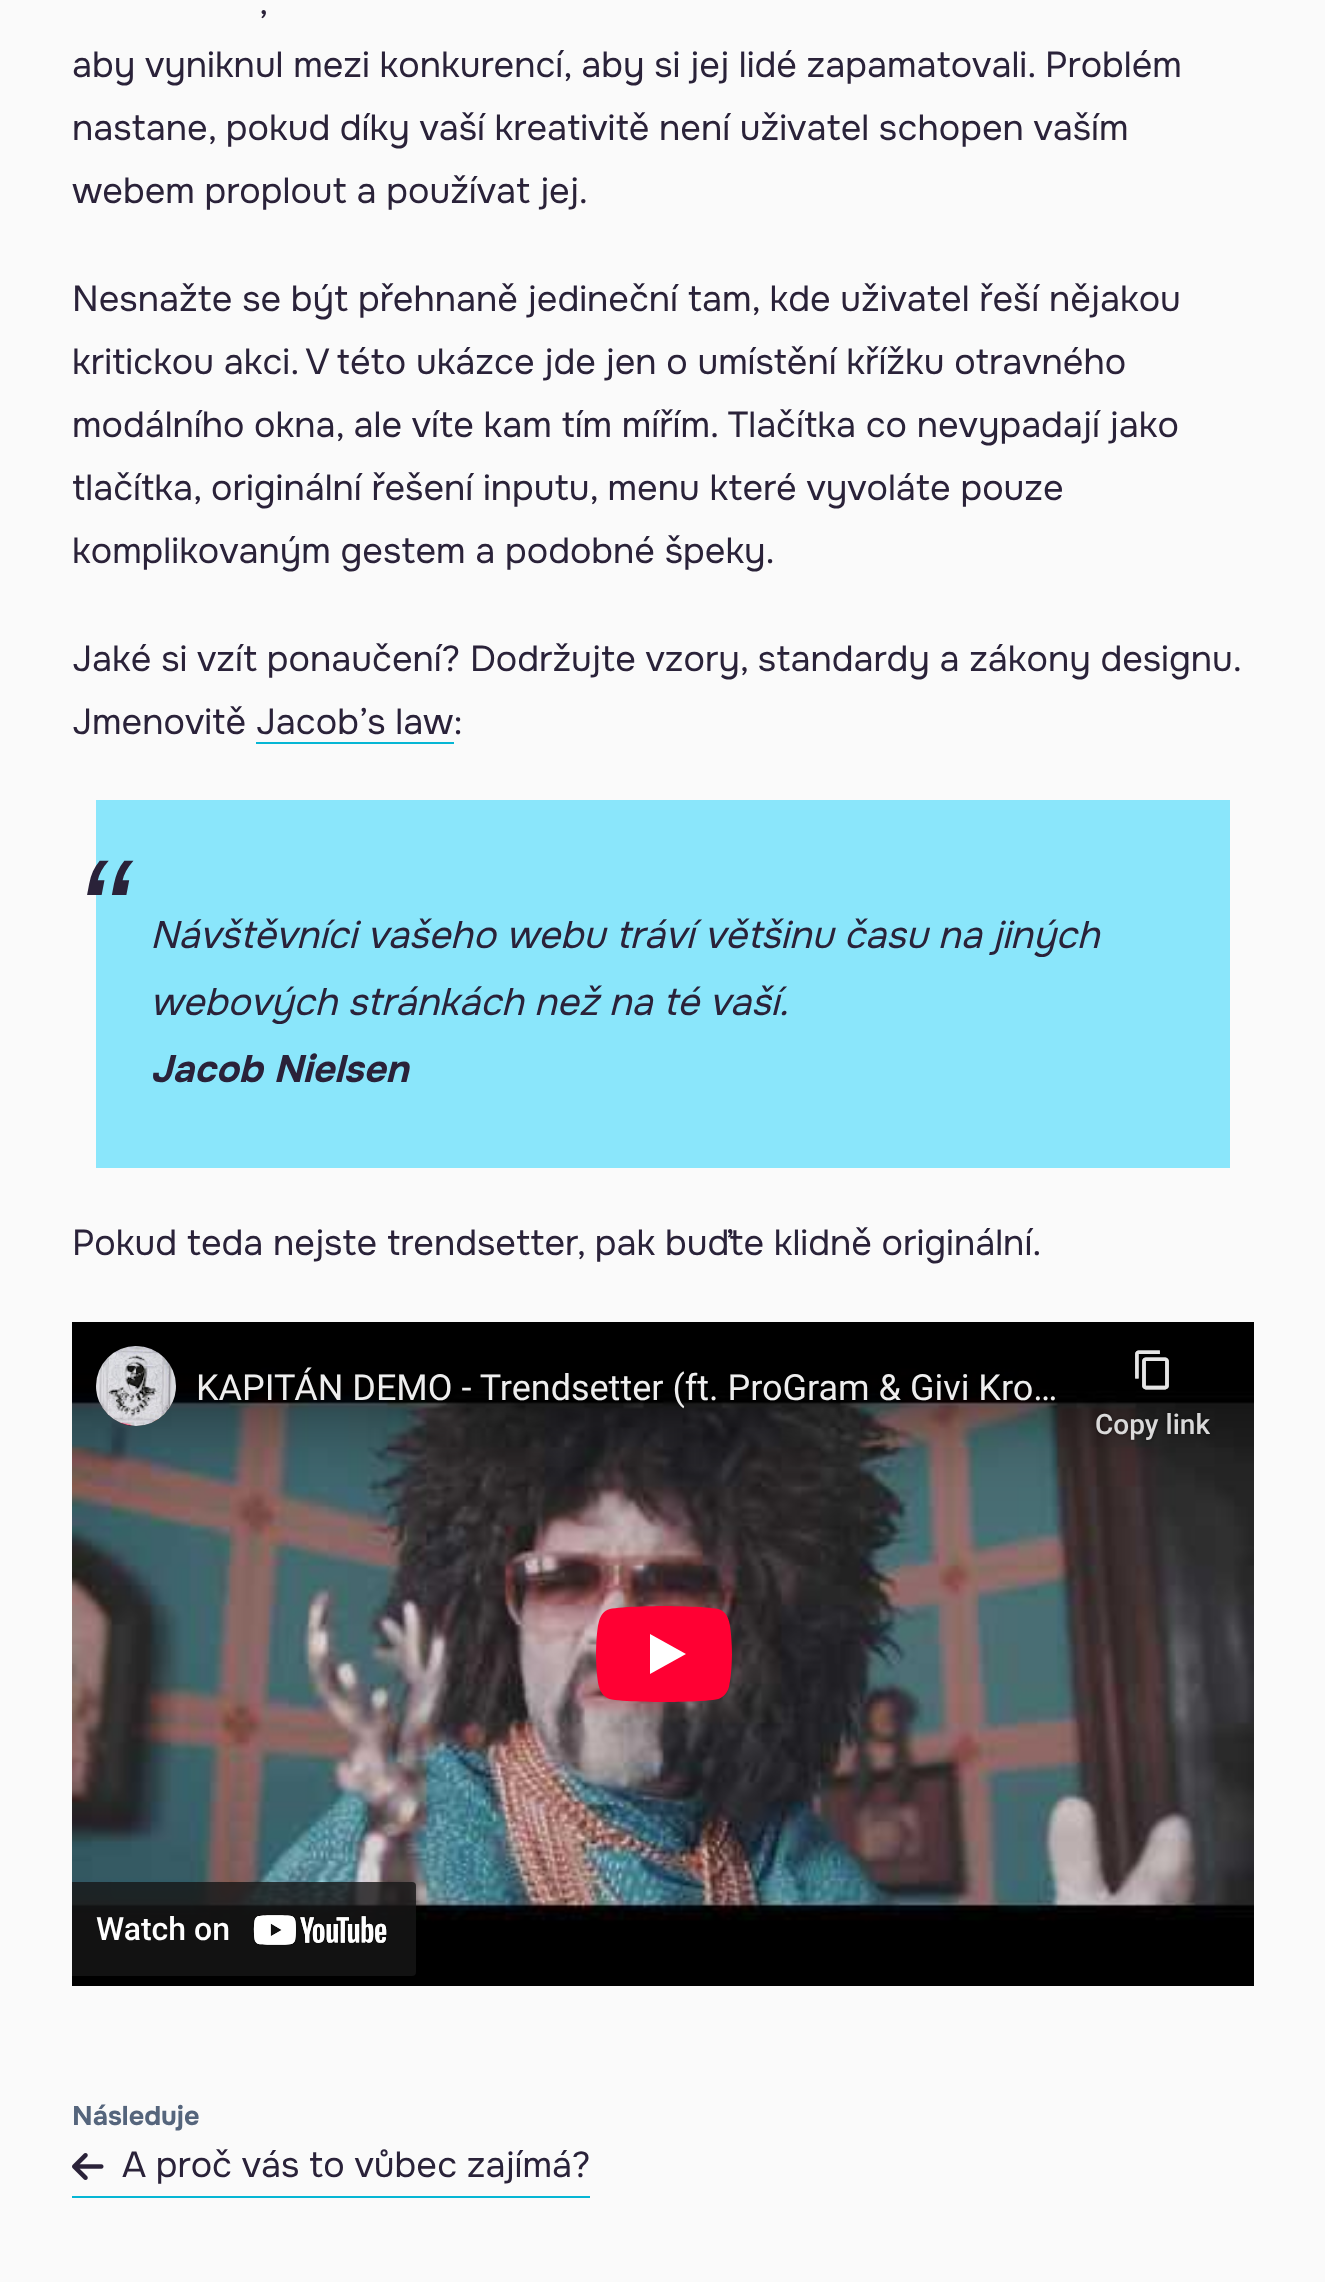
(async () => {
  const canvas = document.querySelector("canvas");
  canvas.width = 1325;
  canvas.height = 2282;
  const ctx = canvas.getContext("2d");
  ctx.miterLimit = 4;
  ctx.fontKerning = "normal";
  async function loadImage(src) {
    const img = new Image();
    img.src = src;
    await img.decode();
    return img;
  }

  ctx.fillStyle = "#fafafa";
  ctx.fillRect(0, 0, 1325, 2282);
  ctx.fillStyle = "#06b6d4";
  ctx.fillRect(256, 742, 198, 2);
  ctx.fillStyle = "#8ae6fb";
  ctx.fillRect(96, 800, 1134, 368);
  ctx.drawImage(await loadImage("img/1.png"), 72, 1322, 1182, 664);
  ctx.fillStyle = "#06b6d4";
  ctx.fillRect(72, 2196, 518, 2);
  ctx.drawImage(await loadImage("img/2.png"), 72, 2153, 32, 27);
  ctx.font = "36px Onest";
  ctx.fillStyle = "#2a2239";
  for (const [text, x, y] of [
    [",", 259, 14],
    ["aby vyniknul mezi konkurencí, aby si jej lidé zapamatovali. Problém", 72, 77],
    ["nastane, pokud díky vaší kreativitě není uživatel schopen vaším", 72, 140],
    ["webem proplout a používat jej.", 72, 203],
    ["Nesnažte se být přehnaně jedineční tam, kde uživatel řeší nějakou", 72, 311],
    ["kritickou akci. V této ukázce jde jen o umístění křížku otravného", 72, 374],
    ["modálního okna, ale víte kam tím mířím. Tlačítka co nevypadají jako", 72, 437],
    ["tlačítka, originální řešení inputu, menu které vyvoláte pouze", 72, 500],
    ["komplikovaným gestem a podobné špeky.", 72, 563],
    ["Jaké si vzít ponaučení? Dodržujte vzory, standardy a zákony designu.", 72, 671],
    ["Jmenovitě Jacob’s law:", 72, 734],
  ]) {
    ctx.fillText(text, x, y);
  }
  ctx.font = "italic 153px Liberation Sans";
  ctx.fillText("“", 76, 966);
  ctx.font = "italic 38.25px Onest";
  ctx.fillText("Návštěvníci vašeho webu tráví většinu času na jiných", 150, 948);
  ctx.fillText("webových stránkách než na té vaší.", 150, 1015);
  ctx.font = "italic bold 38.25px Onest";
  ctx.fillText("Jacob Nielsen", 150, 1082);
  ctx.font = "36px Onest";
  ctx.fillText("Pokud teda nejste trendsetter, pak buďte klidně originální.", 72, 1255);
  ctx.font = "bold 27px Onest";
  ctx.fillStyle = "#55657c";
  ctx.fillText("Následuje", 72, 2125);
  ctx.font = "36px Onest";
  ctx.fillStyle = "#2a2239";
  ctx.fillText("A proč vás to vůbec zajímá?", 122, 2177);
})();
